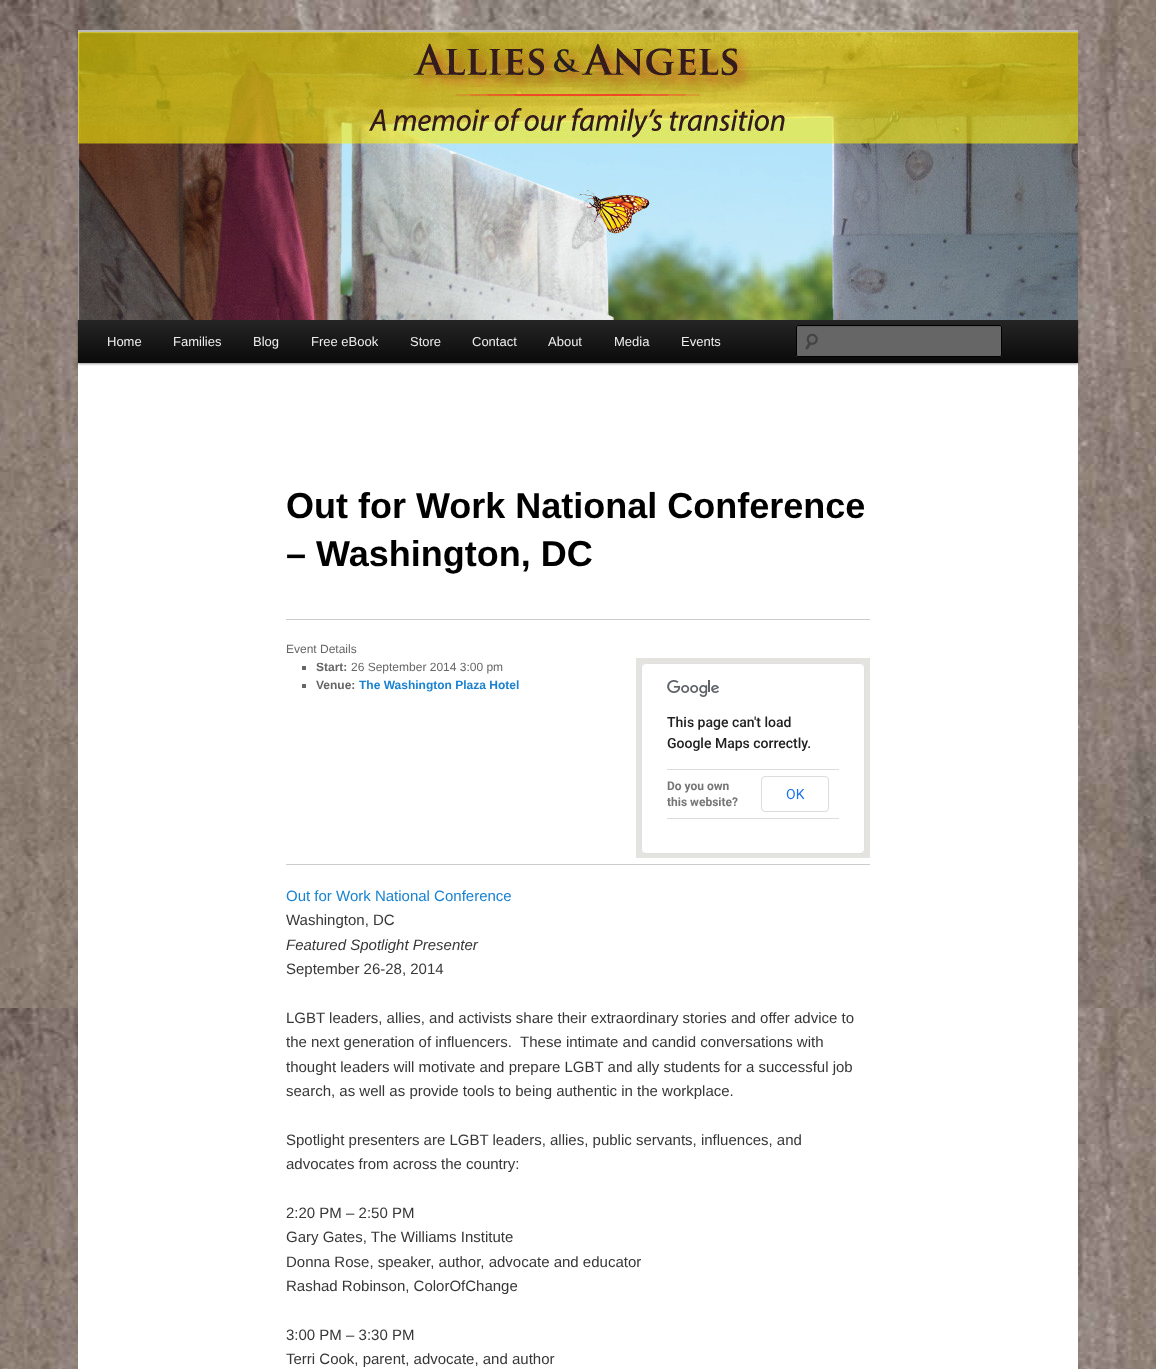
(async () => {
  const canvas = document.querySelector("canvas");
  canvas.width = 1156;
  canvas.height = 1369;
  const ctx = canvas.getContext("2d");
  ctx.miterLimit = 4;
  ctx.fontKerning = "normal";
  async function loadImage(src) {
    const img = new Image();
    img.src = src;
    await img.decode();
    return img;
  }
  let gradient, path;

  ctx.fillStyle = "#ffffff";
  ctx.fillRect(0, 0, 1156, 1369);
  ctx.drawImage(await loadImage("img/1.png"), 0, 0, 1156, 1369);
  ctx.fillRect(78, 363, 1000, 1006);
  ctx.fillStyle = "#bbbbbb";
  ctx.fillRect(78, 30, 1000, 2);
  ctx.fillStyle = "rgba(0, 0, 0, 0.4)";
  ctx.filter = "blur(1px)";
  ctx.beginPath();
  ctx.rect(78, 321, 1000, 43);
  ctx.fill();
  ctx.filter = "none";
  ctx.drawImage(await loadImage("img/2.png"), 78, 32, 1000, 288);
  gradient = ctx.createLinearGradient(578, 320, 578, 363);
  gradient.addColorStop(0, "#252525");
  gradient.addColorStop(1, "#0a0a0a");
  ctx.fillStyle = gradient;
  ctx.fillRect(78, 320, 1000, 43);
  ctx.fillStyle = "#666666";
  ctx.beginPath();
  ctx.roundRect(796, 325, 206, 32, 2);
  ctx.fill();
  ctx.drawImage(await loadImage("img/3.png"), 805, 333, 13, 17);
  ctx.fillStyle = "#5c5c5c";
  path = new Path2D("M798 327H1001V328V326H1000H798C797 326 797 327 797 328C797 327 797 327 798 327Z");
  ctx.fill(path);
  ctx.beginPath();
  ctx.roundRect(796.5, 325.5, 205, 31, 1.5);
  ctx.strokeStyle = "#000000";
  ctx.stroke();
  for (const [x, y, w, h, color] of [
    [286, 619, 584, 1, "#cccccc"],
    [302, 666, 4, 4, "#666666"],
    [302, 684, 4, 4, "#666666"],
    [636, 658, 234, 200, "#e5e3df"],
  ]) {
    ctx.fillStyle = color;
    ctx.fillRect(x, y, w, h);
  }
  ctx.fillStyle = "#ffffff";
  ctx.beginPath();
  ctx.roundRect(641, 663, 224, 191, 5);
  ctx.fill();
  ctx.beginPath();
  ctx.roundRect(641.5, 663.5, 223, 190, 4.5);
  ctx.strokeStyle = "rgba(0, 0, 0, 0.12)";
  ctx.stroke();
  ctx.drawImage(await loadImage("img/4.png"), 667, 680, 52, 17);
  ctx.fillStyle = "#dddddd";
  ctx.fillRect(667, 818, 172, 1);
  ctx.fillRect(667, 769, 172, 1);
  ctx.beginPath();
  ctx.roundRect(761.5, 776.5, 67, 35, 3.5);
  ctx.strokeStyle = "#dadce0";
  ctx.stroke();
  ctx.fillStyle = "#cccccc";
  ctx.fillRect(286, 864, 584, 1);
  ctx.font = "13px Liberation Sans";
  ctx.fillStyle = "#eeeeee";
  for (const [text, x, y] of [
    ["Home", 107, 346],
    ["Families", 173, 346],
    ["Blog", 253, 346],
    ["Free eBook", 311, 346],
    ["Store", 410, 346],
    ["Contact", 472, 346],
    ["About", 548, 346],
    ["Media", 614, 346],
    ["Events", 681, 346],
  ]) {
    ctx.fillText(text, x, y);
  }
  ctx.font = "bold 36px Liberation Sans";
  ctx.fillStyle = "#000000";
  ctx.fillText("Out for Work National Conference", 286, 518);
  ctx.fillText("– Washington, DC", 286, 566);
  ctx.font = "12px Liberation Sans";
  ctx.fillStyle = "#666666";
  ctx.fillText("Event Details", 286, 653);
  ctx.font = "bold 12px Liberation Sans";
  ctx.fillText("Start:", 316, 671);
  ctx.font = "12px Liberation Sans";
  ctx.fillText("26 September 2014 3:00 pm", 351, 671);
  ctx.font = "bold 12px Liberation Sans";
  ctx.fillText("Venue:", 316, 689);
  ctx.fillStyle = "#1982d1";
  ctx.fillText("The Washington Plaza Hotel", 359, 689);
  ctx.font = "500 14px Roboto";
  ctx.fillStyle = "#212121";
  ctx.fillText("This page can't load", 667, 727);
  ctx.fillText("Google Maps correctly.", 667, 748);
  ctx.font = "bold 12px Roboto";
  ctx.fillStyle = "#757575";
  ctx.fillText("Do you own", 667, 790);
  ctx.fillText("this website?", 667, 806);
  ctx.font = "14px Roboto";
  ctx.fillStyle = "#1a73e8";
  ctx.fillText("OK", 786, 799);
  ctx.font = "15px Liberation Sans";
  ctx.fillStyle = "#1982d1";
  ctx.fillText("Out for Work National Conference", 286, 901);
  ctx.fillStyle = "#373737";
  ctx.fillText("Washington, DC", 286, 925);
  ctx.font = "italic 15px Liberation Sans";
  ctx.fillText("Featured Spotlight Presenter", 286, 950);
  ctx.font = "15px Liberation Sans";
  for (const [text, x, y] of [
    ["September 26-28, 2014", 286, 974],
    ["LGBT leaders, allies, and activists share their extraordinary stories and offer advice to", 286, 1023],
    ["the next generation of influencers.  These intimate and candid conversations with", 286, 1047],
    ["thought leaders will motivate and prepare LGBT and ally students for a successful job", 286, 1072],
    ["search, as well as provide tools to being authentic in the workplace.", 286, 1096],
    ["Spotlight presenters are LGBT leaders, allies, public servants, influences, and", 286, 1145],
    ["advocates from across the country:", 286, 1169],
    ["2:20 PM – 2:50 PM", 286, 1218],
    ["Gary Gates, The Williams Institute", 286, 1242],
    ["Donna Rose, speaker, author, advocate and educator", 286, 1267],
    ["Rashad Robinson, ColorOfChange", 286, 1291],
    ["3:00 PM – 3:30 PM", 286, 1340],
    ["Terri Cook, parent, advocate, and author", 286, 1364],
  ]) {
    ctx.fillText(text, x, y);
  }
})();
